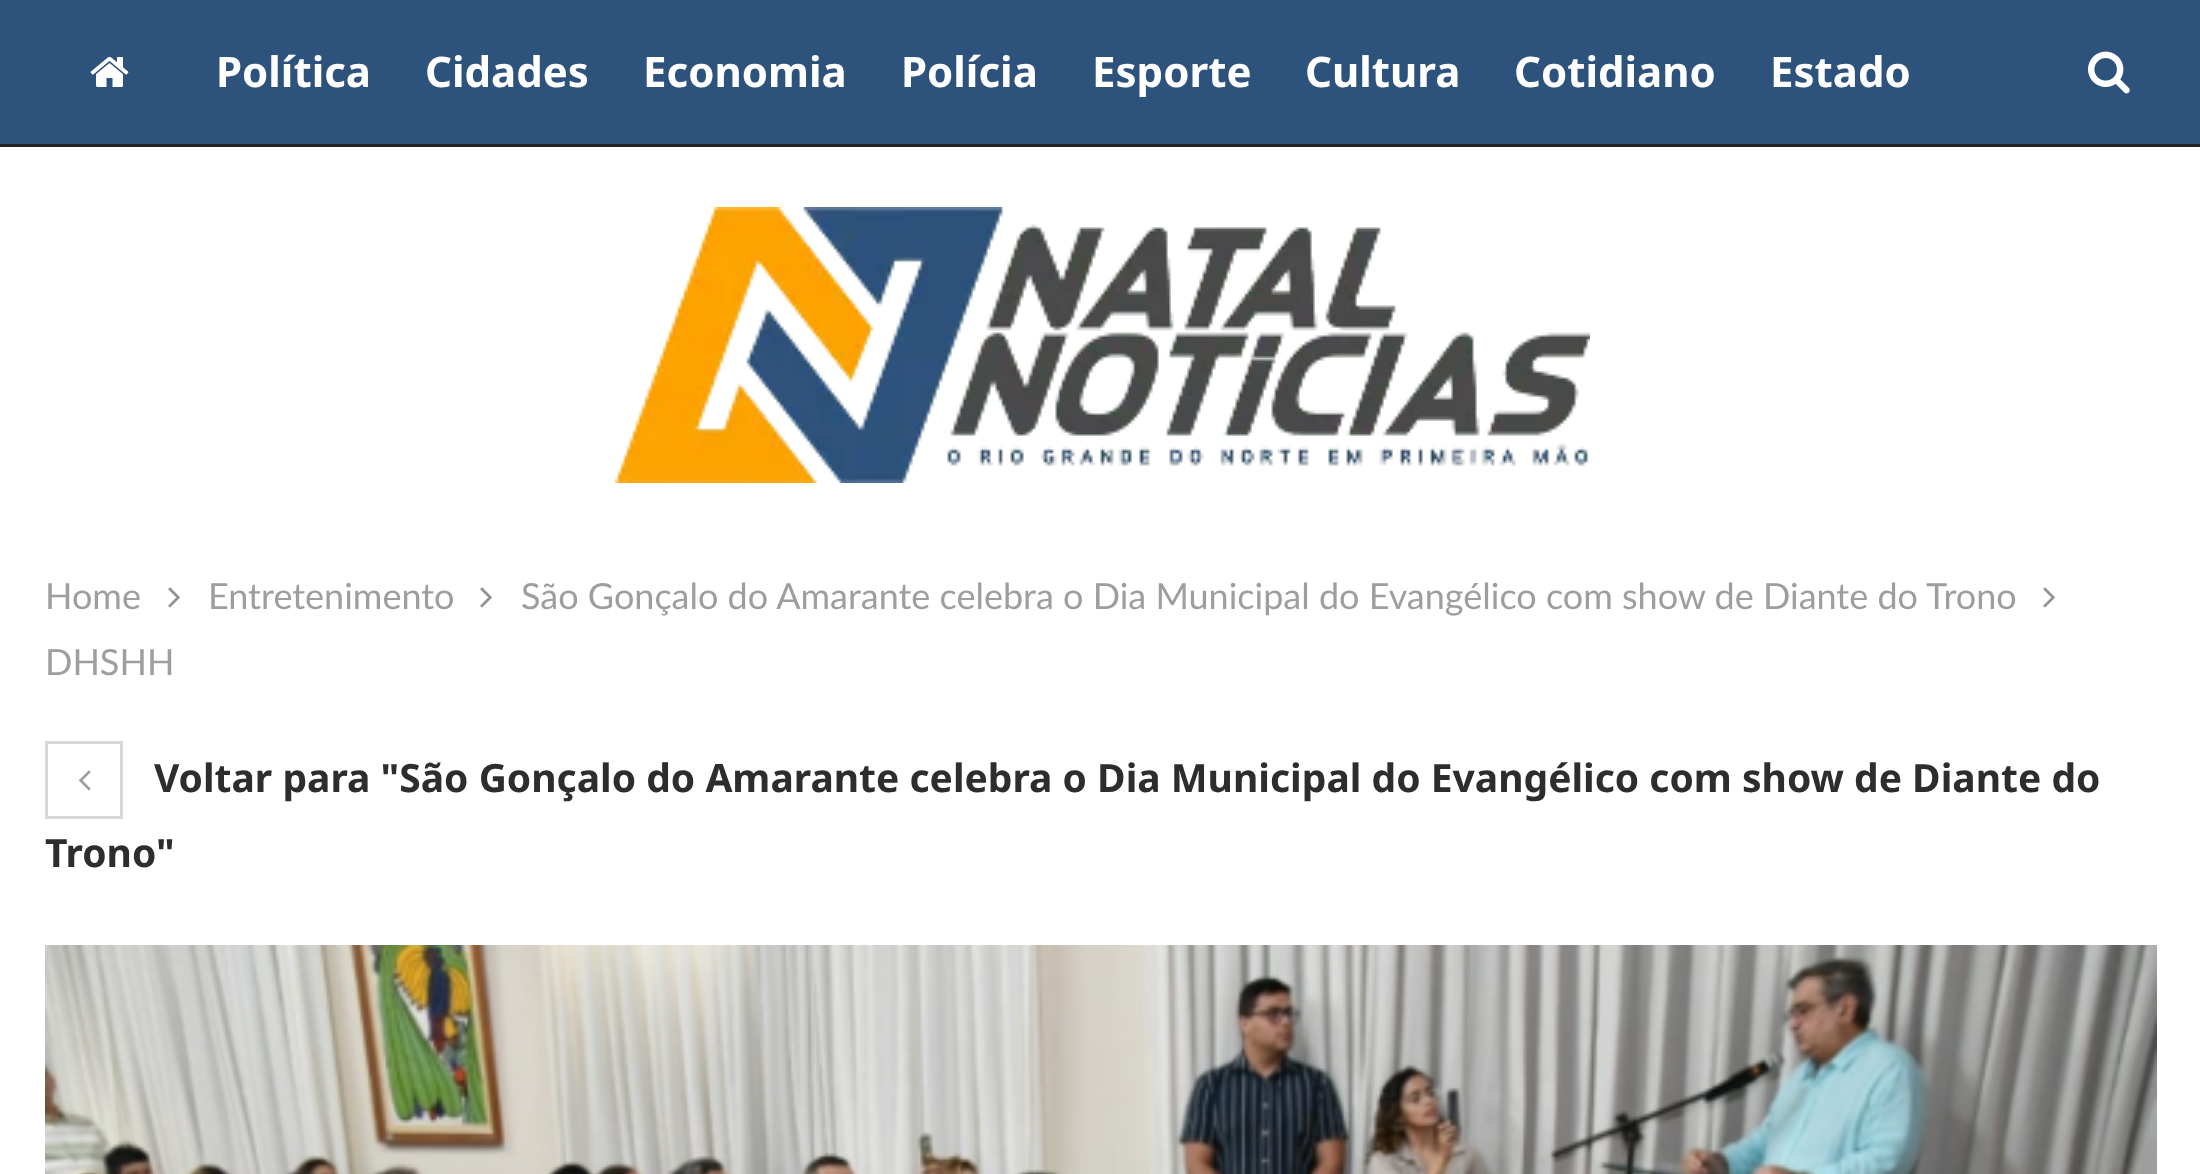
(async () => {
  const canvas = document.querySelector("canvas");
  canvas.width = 2200;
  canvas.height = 1174;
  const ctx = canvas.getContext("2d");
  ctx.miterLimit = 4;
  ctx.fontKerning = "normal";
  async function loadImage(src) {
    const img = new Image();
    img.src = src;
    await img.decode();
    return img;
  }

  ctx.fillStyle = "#ffffff";
  ctx.fillRect(0, 0, 2200, 1174);
  ctx.fillStyle = "#2d527c";
  ctx.fillRect(0, 0, 2200, 144);
  ctx.fillStyle = "#232323";
  ctx.fillRect(0, 144, 2200, 3);
  ctx.drawImage(await loadImage("img/1.png"), 90, 56, 39, 31);
  ctx.drawImage(await loadImage("img/2.png"), 2088, 51, 42, 43);
  ctx.drawImage(await loadImage("img/3.png"), 615, 207, 975, 276);
  ctx.drawImage(await loadImage("img/4.png"), 168, 587, 12, 21);
  ctx.drawImage(await loadImage("img/4.png"), 480, 587, 12, 21);
  ctx.drawImage(await loadImage("img/4.png"), 2043, 587, 12, 21);
  ctx.strokeStyle = "#d8d8d8";
  ctx.lineWidth = 3;
  ctx.strokeRect(46.5, 742.5, 75, 75);
  ctx.drawImage(await loadImage("img/5.png"), 79, 770, 12, 21);
  ctx.drawImage(await loadImage("img/6.png"), 45, 945, 2112, 229);
  ctx.font = "bold 42px Noto Sans";
  ctx.fillStyle = "#ffffff";
  for (const [text, x, y] of [
    ["Política", 216, 87],
    ["Cidades", 425, 87],
    ["Economia", 643, 87],
    ["Polícia", 901, 87],
    ["Esporte", 1092, 87],
    ["Cultura", 1305, 87],
    ["Cotidiano", 1514, 87],
    ["Estado", 1770, 87],
  ]) {
    ctx.fillText(text, x, y);
  }
  ctx.font = "36px Lato";
  ctx.fillStyle = "#9e9e9e";
  for (const [text, x, y] of [
    ["Home", 45, 609],
    ["Entretenimento", 208, 609],
    ["São Gonçalo do Amarante celebra o Dia Municipal do Evangélico com show de Diante do Trono", 521, 609],
    ["DHSHH", 45, 675],
  ]) {
    ctx.fillText(text, x, y);
  }
  ctx.font = "bold 39px Noto Sans";
  ctx.fillStyle = "#2d2d2d";
  ctx.fillText("Voltar para \"São Gonçalo do Amarante celebra o Dia Municipal do Evangélico com show de Diante do", 154, 792);
  ctx.fillText("Trono\"", 45, 867);
})();
